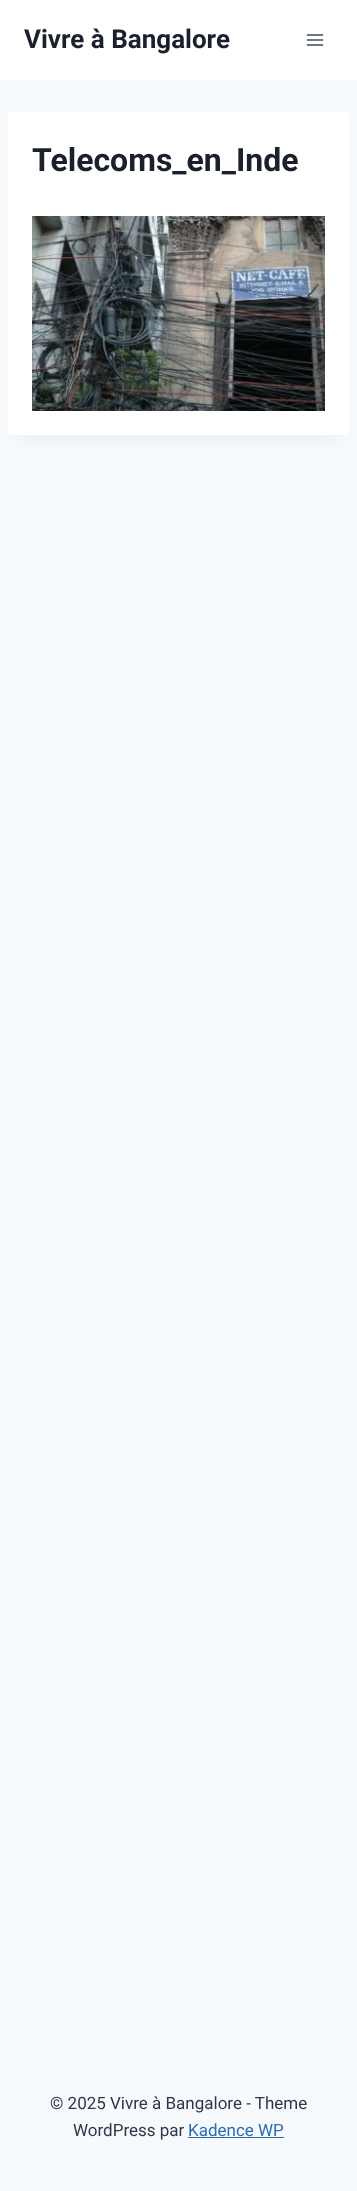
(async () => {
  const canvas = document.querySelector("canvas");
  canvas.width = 357;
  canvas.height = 2191;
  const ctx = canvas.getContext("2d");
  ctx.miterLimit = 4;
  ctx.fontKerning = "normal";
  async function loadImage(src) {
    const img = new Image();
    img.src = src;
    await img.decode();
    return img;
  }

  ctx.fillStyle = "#f7fafc";
  ctx.fillRect(0, 0, 357, 2191);
  ctx.fillStyle = "#ffffff";
  ctx.fillRect(0, 0, 357, 80);
  ctx.drawImage(await loadImage("img/1.png"), 306, 34, 18, 12);
  ctx.fillStyle = "rgba(0, 0, 0, 0.05)";
  ctx.filter = "blur(7.5px)";
  ctx.beginPath();
  ctx.rect(18, 137, 321, 303);
  ctx.fill();
  ctx.filter = "none";
  ctx.fillStyle = "#ffffff";
  ctx.beginPath();
  ctx.roundRect(8, 112, 341, 323, 4);
  ctx.fill();
  ctx.drawImage(await loadImage("img/2.png"), 32, 216, 293, 195);
  ctx.fillStyle = "#2b6cb0";
  ctx.fillRect(188, 2137, 96, 1);
  ctx.font = "bold 26px Roboto";
  ctx.fillStyle = "#1a202c";
  ctx.fillText("Vivre à Bangalore", 24, 48);
  ctx.font = "bold 32px Roboto";
  ctx.fillText("Telecoms_en_Inde", 32, 171);
  ctx.font = "17px Roboto";
  ctx.fillStyle = "#2d3748";
  ctx.fillText("© 2025 Vivre à Bangalore - Theme", 50, 2109);
  ctx.fillText("WordPress par", 73, 2136);
  ctx.fillStyle = "#2b6cb0";
  ctx.fillText("Kadence WP", 188, 2136);
})();
